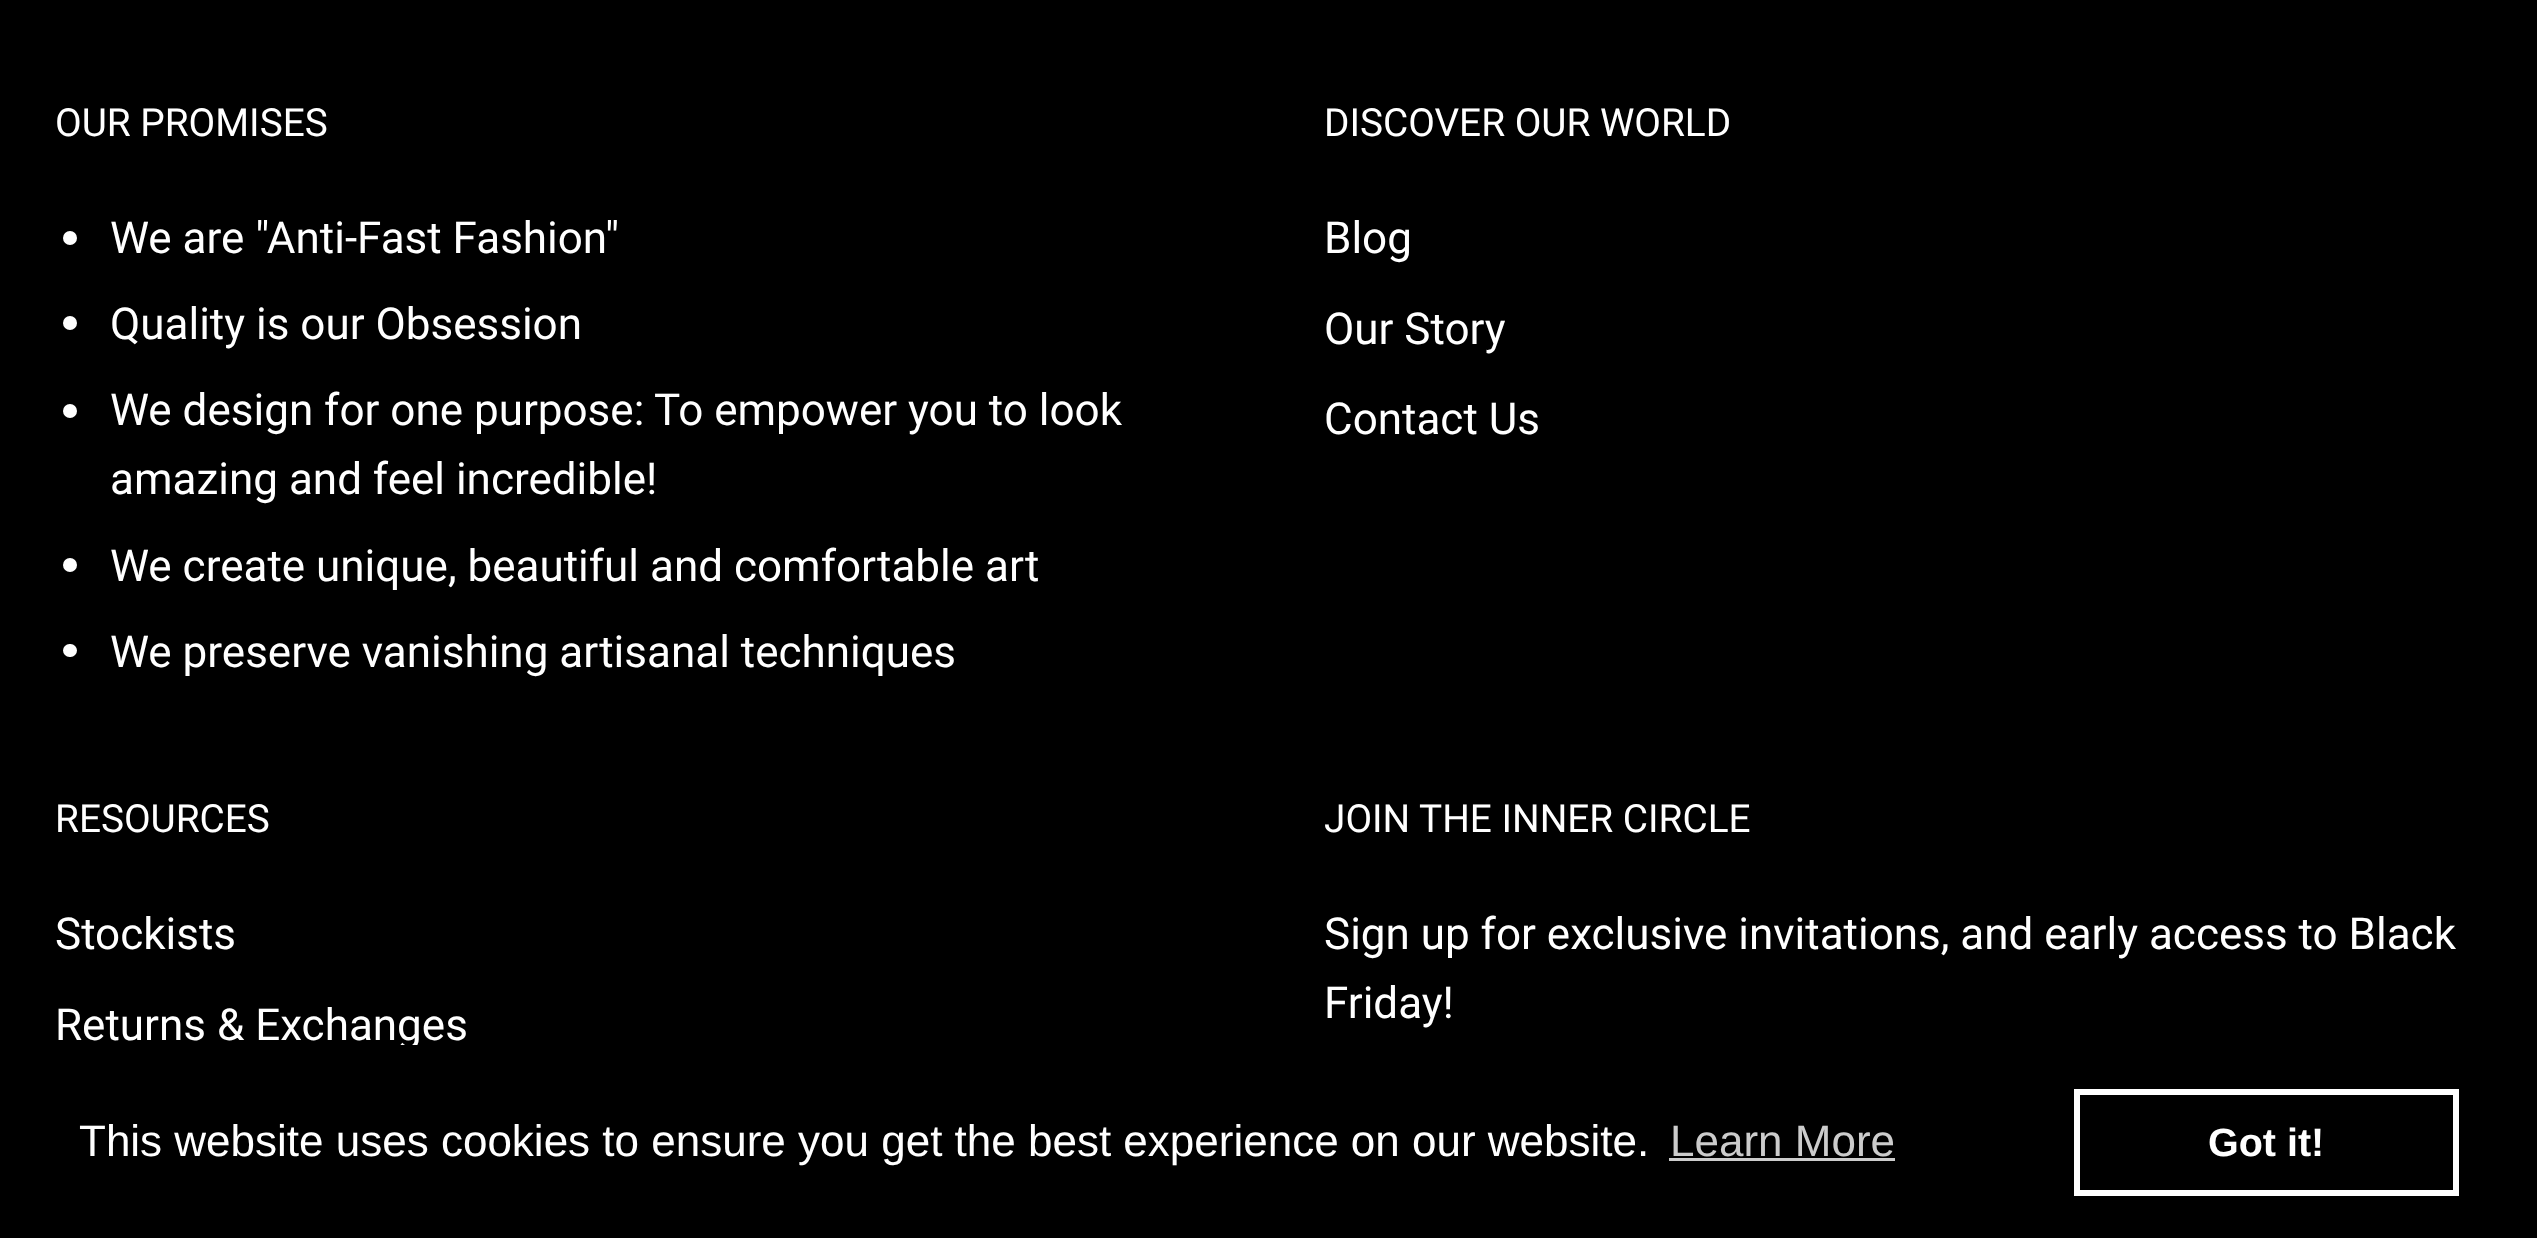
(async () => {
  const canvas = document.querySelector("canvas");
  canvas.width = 2537;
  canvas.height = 1238;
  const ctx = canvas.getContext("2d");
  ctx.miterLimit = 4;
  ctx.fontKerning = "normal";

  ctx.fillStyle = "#000000";
  ctx.fillRect(0, 0, 2537, 1238);
  ctx.fillStyle = "#ffffff";
  ctx.beginPath();
  ctx.arc(70, 238, 7, 0, Math.PI * 2);
  ctx.fill();
  ctx.beginPath();
  ctx.arc(70, 323, 7, 0, Math.PI * 2);
  ctx.fill();
  ctx.beginPath();
  ctx.arc(70, 411, 7, 0, Math.PI * 2);
  ctx.fill();
  ctx.beginPath();
  ctx.arc(70, 565, 7, 0, Math.PI * 2);
  ctx.fill();
  ctx.beginPath();
  ctx.roundRect(63, 644, 14, 13, 6.5);
  ctx.fill();
  ctx.fillStyle = "#cccccc";
  ctx.fillRect(1669, 1158, 226, 3);
  ctx.strokeStyle = "#ffffff";
  ctx.lineWidth = 6;
  ctx.strokeRect(2077, 1092, 379, 101);
  ctx.font = "38.75px Roboto";
  ctx.fillStyle = "#ffffff";
  ctx.fillText("OUR PROMISES", 55, 136);
  ctx.font = "44px Roboto";
  for (const [text, x, y] of [
    ["We are \"Anti-Fast Fashion\"", 110, 253],
    ["Quality is our Obsession", 110, 339],
    ["We design for one purpose:", 110, 425],
    ["To empower you to look", 654, 425],
    ["amazing and feel incredible!", 110, 494],
    ["We create unique, beautiful and comfortable art", 110, 581],
    ["We preserve vanishing artisanal techniques", 110, 667],
  ]) {
    ctx.fillText(text, x, y);
  }
  ctx.font = "38.75px Roboto";
  ctx.fillText("DISCOVER OUR WORLD", 1324, 136);
  ctx.font = "44px Roboto";
  for (const [text, x, y] of [
    ["Blog", 1324, 253],
    ["Our Story", 1324, 344],
    ["Contact Us", 1324, 434],
  ]) {
    ctx.fillText(text, x, y);
  }
  ctx.font = "38.75px Roboto";
  ctx.fillText("RESOURCES", 55, 832);
  ctx.font = "44px Roboto";
  ctx.fillText("Stockists", 55, 949);
  ctx.fillText("Returns & Exchanges", 55, 1040);
  ctx.font = "38.75px Roboto";
  ctx.fillText("JOIN THE INNER CIRCLE", 1324, 832);
  ctx.font = "44px Roboto";
  ctx.fillText("Sign up for exclusive invitations, and early access to Black", 1324, 949);
  ctx.fillText("Friday!", 1324, 1018);
  ctx.fillStyle = "#000000";
  ctx.fillRect(400, 1045, 18, 5);
  ctx.font = "44px Liberation Sans";
  ctx.fillStyle = "#ffffff";
  ctx.fillText("This website uses cookies to ensure you get the best experience on our website.", 79, 1156);
  ctx.fillStyle = "#cccccc";
  ctx.fillText("Learn More", 1670, 1156);
  ctx.font = "bold 39.5px Liberation Sans";
  ctx.fillStyle = "#ffffff";
  ctx.fillText("Got it!", 2208, 1156);
})();
